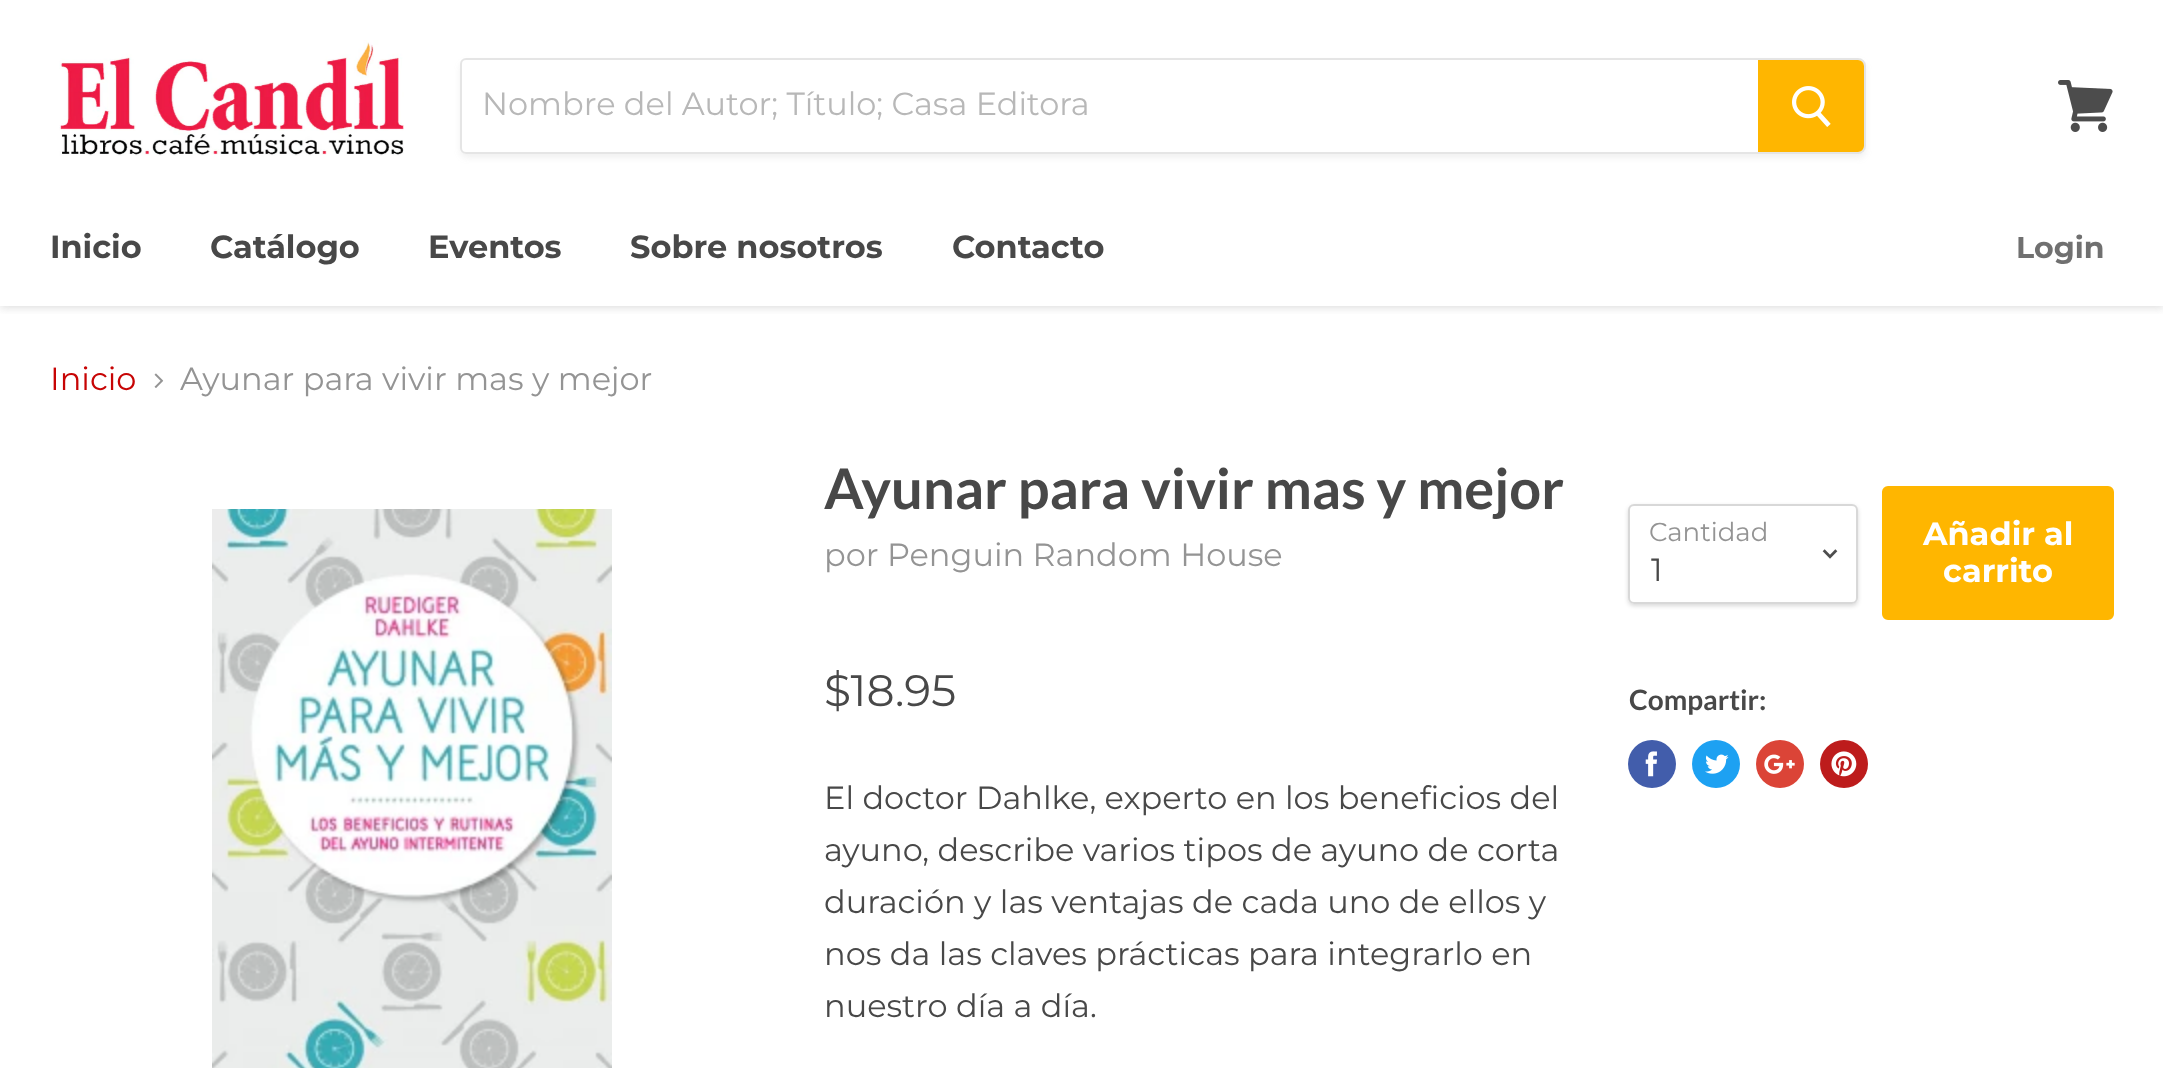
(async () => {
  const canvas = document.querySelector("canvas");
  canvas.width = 2163;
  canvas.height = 1068;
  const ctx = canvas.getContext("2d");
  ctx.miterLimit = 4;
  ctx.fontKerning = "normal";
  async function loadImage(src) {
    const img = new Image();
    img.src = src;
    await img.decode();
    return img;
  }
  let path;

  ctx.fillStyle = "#ffffff";
  ctx.fillRect(0, 0, 2163, 1068);
  ctx.save();
  ctx.beginPath();
  ctx.rect(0, 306, 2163, 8);
  ctx.clip();
  ctx.fillStyle = "rgba(127, 127, 127, 0.25)";
  ctx.filter = "blur(4px)";
  ctx.beginPath();
  ctx.rect(0, 192, 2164, 116);
  ctx.fill();
  ctx.filter = "none";
  ctx.restore();
  ctx.fillRect(0, 186, 2163, 4);
  ctx.drawImage(await loadImage("img/1.png"), 59, 40, 345, 116);
  ctx.save();
  path = new Path2D("M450 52H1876V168H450ZM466 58H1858C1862.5 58 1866 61.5 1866 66V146C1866 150.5 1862.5 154 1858 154H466C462.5 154 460 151.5 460 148V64C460 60.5 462.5 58 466 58Z");
  ctx.clip(path, "evenodd");
  ctx.fillStyle = "rgba(127, 127, 127, 0.11)";
  ctx.filter = "blur(3px)";
  ctx.beginPath();
  ctx.roundRect(460, 62, 1406, 96, 8);
  ctx.fill();
  ctx.filter = "none";
  ctx.restore();
  ctx.beginPath();
  ctx.roundRect(461, 59, 1404, 94, [5, 7, 7, 5]);
  ctx.strokeStyle = "rgba(127, 127, 127, 0.2)";
  ctx.lineWidth = 2;
  ctx.stroke();
  ctx.fillStyle = "#ffb600";
  ctx.beginPath();
  ctx.roundRect(1759, 61, 104, 90, [0, 5, 5, 0]);
  ctx.fill();
  ctx.strokeStyle = "#ffb600";
  ctx.stroke();
  ctx.drawImage(await loadImage("img/2.png"), 1792, 86, 39, 41);
  ctx.drawImage(await loadImage("img/3.png"), 2058, 80, 55, 52);
  ctx.drawImage(await loadImage("img/4.png"), 154, 373, 10, 15);
  ctx.drawImage(await loadImage("img/5.png"), 212, 509, 400, 559);
  ctx.save();
  path = new Path2D("M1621 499H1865V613H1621ZM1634 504H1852C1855.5 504 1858 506.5 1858 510V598C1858 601.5 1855.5 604 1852 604H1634C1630.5 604 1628 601.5 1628 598V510C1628 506.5 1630.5 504 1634 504Z");
  ctx.clip(path, "evenodd");
  ctx.fillStyle = "rgba(0, 0, 0, 0.15)";
  ctx.filter = "blur(2px)";
  ctx.beginPath();
  ctx.roundRect(1628, 506, 230, 100, 6);
  ctx.fill();
  ctx.filter = "none";
  ctx.restore();
  ctx.beginPath();
  ctx.roundRect(1629, 505, 228, 98, 5);
  ctx.strokeStyle = "rgba(127, 127, 127, 0.3)";
  ctx.stroke();
  ctx.drawImage(await loadImage("img/6.png"), 1822, 549, 16, 10);
  ctx.beginPath();
  ctx.roundRect(1883, 487, 230, 132, 5);
  ctx.fill();
  ctx.strokeStyle = "#ffb600";
  ctx.stroke();
  ctx.fillStyle = "#425dab";
  ctx.beginPath();
  ctx.arc(1652, 764, 24, 0, Math.PI * 2);
  ctx.fill();
  ctx.drawImage(await loadImage("img/7.png"), 1645, 751, 12, 26);
  ctx.fillStyle = "#1da1f2";
  ctx.beginPath();
  ctx.arc(1716, 764, 24, 0, Math.PI * 2);
  ctx.fill();
  ctx.drawImage(await loadImage("img/8.png"), 1705, 754, 24, 20);
  ctx.fillStyle = "#db4437";
  ctx.beginPath();
  ctx.arc(1780, 764, 24, 0, Math.PI * 2);
  ctx.fill();
  ctx.drawImage(await loadImage("img/9.png"), 1764, 754, 31, 20);
  ctx.fillStyle = "#bd1c1c";
  ctx.beginPath();
  ctx.arc(1844, 764, 24, 0, Math.PI * 2);
  ctx.fill();
  ctx.drawImage(await loadImage("img/10.png"), 1831, 751, 26, 26);
  ctx.font = "32px Montserrat";
  ctx.fillStyle = "#b8b8b8";
  ctx.fillText("Nombre del Autor; Título; Casa Editora", 482, 115);
  ctx.font = "bold 32px Montserrat";
  ctx.fillStyle = "#484848";
  for (const [text, x, y] of [
    ["Inicio", 50, 258],
    ["Catálogo", 210, 258],
    ["Eventos", 428, 258],
    ["Sobre nosotros", 630, 258],
    ["Contacto", 952, 258],
  ]) {
    ctx.fillText(text, x, y);
  }
  ctx.font = "bold 30px Montserrat";
  ctx.fillStyle = "#707070";
  ctx.fillText("Login", 2016, 258);
  ctx.font = "32px Montserrat";
  ctx.fillStyle = "#c70404";
  ctx.fillText("Inicio", 50, 390);
  ctx.fillStyle = "#949494";
  ctx.fillText("Ayunar para vivir mas y mejor", 180, 390);
  ctx.font = "bold 56px Lato";
  ctx.fillStyle = "#484848";
  ctx.fillText("Ayunar para vivir mas y mejor", 824, 509);
  ctx.font = "32px Montserrat";
  ctx.fillStyle = "#949494";
  ctx.fillText("por Penguin Random House", 824, 566);
  ctx.font = "44px Montserrat";
  ctx.fillStyle = "#484848";
  ctx.fillText("$18.95", 824, 706);
  ctx.font = "32px Montserrat";
  for (const [text, x, y] of [
    ["El doctor Dahlke, experto en los beneficios del", 824, 809],
    ["ayuno, describe varios tipos de ayuno de corta", 824, 861],
    ["duración y las ventajas de cada uno de ellos y", 824, 913],
    ["nos da las claves prácticas para integrarlo en", 824, 965],
    ["nuestro día a día.", 824, 1017],
  ]) {
    ctx.fillText(text, x, y);
  }
  ctx.font = "26px Montserrat";
  ctx.fillStyle = "#949494";
  ctx.fillText("Cantidad", 1649, 541);
  ctx.font = "32px Montserrat";
  ctx.fillStyle = "#484848";
  ctx.fillText("1", 1651, 581);
  ctx.font = "bold 32px Montserrat";
  ctx.fillStyle = "#ffffff";
  ctx.fillText("Añadir al", 1923, 545);
  ctx.fillText("carrito", 1943, 582);
  ctx.font = "bold 28px Lato";
  ctx.fillStyle = "#484848";
  ctx.fillText("Compartir:", 1629, 710);
})();
